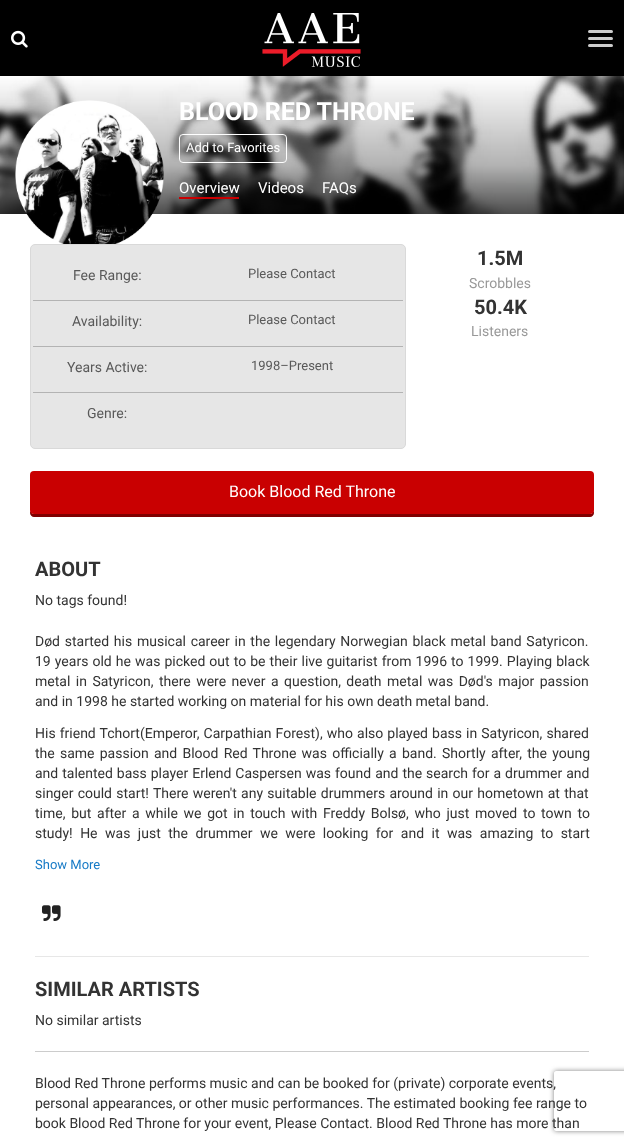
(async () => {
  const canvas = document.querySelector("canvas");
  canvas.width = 624;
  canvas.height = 1145;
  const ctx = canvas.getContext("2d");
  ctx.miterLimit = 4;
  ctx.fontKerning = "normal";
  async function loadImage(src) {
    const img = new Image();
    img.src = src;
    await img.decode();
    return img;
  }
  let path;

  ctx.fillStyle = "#ffffff";
  ctx.fillRect(0, 0, 624, 1145);
  ctx.fillStyle = "#000000";
  ctx.fillRect(0, 0, 624, 76);
  ctx.drawImage(await loadImage("img/1.png"), 11, 30, 17, 18);
  ctx.drawImage(await loadImage("img/2.png"), 262, 13, 99, 54);
  ctx.fillStyle = "#cccccc";
  ctx.beginPath();
  ctx.roundRect(588, 30, 25, 3, 1.5);
  ctx.fill();
  ctx.beginPath();
  ctx.roundRect(588, 37, 25, 3, 1.5);
  ctx.fill();
  ctx.beginPath();
  ctx.roundRect(588, 44, 25, 3, 1.5);
  ctx.fill();
  ctx.drawImage(await loadImage("img/3.png"), 0, 76, 624, 138);
  ctx.drawImage(await loadImage("img/4.png"), 15, 100, 149, 144);
  ctx.beginPath();
  ctx.roundRect(179.5, 134.5, 107, 28, 3.5);
  ctx.strokeStyle = "#ffffff";
  ctx.stroke();
  ctx.fillStyle = "#c90001";
  ctx.fillRect(179, 197, 60, 2);
  ctx.fillStyle = "#e6e6e6";
  ctx.beginPath();
  ctx.roundRect(30.5, 244.5, 375, 204, 4.5);
  ctx.fill();
  ctx.strokeStyle = "#d9d9d9";
  ctx.stroke();
  for (const [x, y, w, h, color] of [
    [33, 300, 370, 1, "#b3b3b3"],
    [33, 346, 370, 1, "#b3b3b3"],
    [33, 392, 370, 1, "#b3b3b3"],
  ]) {
    ctx.fillStyle = color;
    ctx.fillRect(x, y, w, h);
  }
  ctx.fillStyle = "#800000";
  path = new Path2D("M30 510V513C30 515 32 517 34 517H590C592 517 594 515 594 513V510C594 512 592 514 590 514H34C32 514 30 512 30 510Z");
  ctx.fill(path);
  ctx.fillStyle = "#c90001";
  ctx.beginPath();
  ctx.roundRect(30, 471, 564, 43, 4);
  ctx.fill();
  ctx.fillStyle = "#e7e7e7";
  ctx.fillRect(35, 956, 554, 1);
  ctx.drawImage(await loadImage("img/5.png"), 42, 905, 19, 16);
  ctx.fillStyle = "#cccccc";
  ctx.fillRect(35, 1051, 554, 1);
  ctx.save();
  path = new Path2D("M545 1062H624V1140H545ZM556 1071H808C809 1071 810 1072 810 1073V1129C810 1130 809 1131 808 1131H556C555 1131 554 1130 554 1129V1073C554 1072 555 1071 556 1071Z");
  ctx.clip(path, "evenodd");
  ctx.fillStyle = "#808080";
  ctx.filter = "blur(2.5px)";
  ctx.beginPath();
  ctx.roundRect(554, 1071, 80, 60, 2);
  ctx.fill();
  ctx.filter = "none";
  ctx.restore();
  ctx.font = "bold 25px Roboto";
  ctx.fillStyle = "#ffffff";
  ctx.fillText("BLOOD RED THRONE", 179, 120);
  ctx.font = "13px Roboto";
  ctx.fillText("Add to Favorites", 186, 152);
  ctx.font = "15px Roboto";
  for (const [text, x, y] of [
    ["Overview", 179, 193],
    ["Videos", 258, 193],
    ["FAQs", 322, 193],
  ]) {
    ctx.fillText(text, x, y);
  }
  ctx.font = "14px Roboto";
  ctx.fillStyle = "#595959";
  ctx.fillText("Fee Range:", 73, 280);
  ctx.font = "13px Roboto";
  ctx.fillText("Please Contact", 248, 278);
  ctx.font = "14px Roboto";
  ctx.fillText("Availability:", 72, 326);
  ctx.font = "13px Roboto";
  ctx.fillText("Please Contact", 248, 324);
  ctx.font = "14px Roboto";
  ctx.fillText("Years Active:", 67, 372);
  ctx.font = "13px Roboto";
  ctx.fillText("1998–Present", 251, 370);
  ctx.font = "14px Roboto";
  ctx.fillText("Genre:", 87, 418);
  ctx.font = "bold 20px Roboto";
  ctx.fillStyle = "#333333";
  ctx.fillText("1.5M", 477, 265);
  ctx.font = "14px Roboto";
  ctx.fillStyle = "#999999";
  ctx.fillText("Scrobbles", 469, 288);
  ctx.font = "bold 20px Roboto";
  ctx.fillStyle = "#333333";
  ctx.fillText("50.4K", 474, 314);
  ctx.font = "14px Roboto";
  ctx.fillStyle = "#999999";
  ctx.fillText("Listeners", 471, 336);
  ctx.font = "16px Roboto";
  ctx.fillStyle = "#ffffff";
  ctx.fillText("Book Blood Red Throne", 229, 497);
  ctx.font = "bold 20px Roboto";
  ctx.fillStyle = "#333333";
  ctx.fillText("ABOUT", 35, 576);
  ctx.font = "14px Roboto";
  ctx.fillText("No tags found!", 35, 605);
  ctx.wordSpacing = "1.25px";
  ctx.fillText("Død started his musical career in the legendary Norwegian black metal band Satyricon.", 35, 646);
  ctx.wordSpacing = "0.6px";
  ctx.fillText("19 years old he was picked out to be their live guitarist from 1996 to 1999. Playing black", 35, 666);
  ctx.wordSpacing = "2px";
  ctx.fillText("metal in Satyricon, there were never a question, death metal was Død's major passion", 35, 686);
  ctx.wordSpacing = "0px";
  ctx.fillText("and in 1998 he started working on material for his own death metal band.", 35, 706);
  ctx.wordSpacing = "0.6px";
  ctx.fillText("His friend Tchort(Emperor, Carpathian Forest), who also played bass in Satyricon, shared", 35, 738);
  ctx.wordSpacing = "1.75px";
  ctx.fillText("the same passion and Blood Red Throne was officially a band. Shortly after, the young", 35, 758);
  ctx.wordSpacing = "0.5px";
  ctx.fillText("and talented bass player Erlend Caspersen was found and the search for a drummer and", 35, 778);
  ctx.wordSpacing = "0.8px";
  ctx.fillText("singer could start! There weren't any suitable drummers around in our hometown at that", 35, 798);
  ctx.wordSpacing = "2.25px";
  ctx.fillText("time, but after a while we got in touch with Freddy Bolsø, who just moved to town to", 35, 818);
  ctx.wordSpacing = "4px";
  ctx.fillText("study! He was just the drummer we were looking for and it was amazing to start", 35, 838);
  ctx.wordSpacing = "0px";
  ctx.font = "13px Roboto";
  ctx.fillStyle = "#167ac6";
  ctx.fillText("Show More", 35, 869);
  ctx.font = "bold 20px Roboto";
  ctx.fillStyle = "#333333";
  ctx.fillText("SIMILAR ARTISTS", 35, 996);
  ctx.font = "14px Roboto";
  for (const [text, x, y] of [
    ["No similar artists", 35, 1025],
    ["Blood Red Throne performs music and can be booked for (private) corporate events,", 35, 1088],
    ["personal appearances, or other music performances. The estimated booking fee range to", 35, 1108],
    ["book Blood Red Throne for your event, Please Contact. Blood Red Throne has more than", 35, 1128],
  ]) {
    ctx.fillText(text, x, y);
  }
})();
